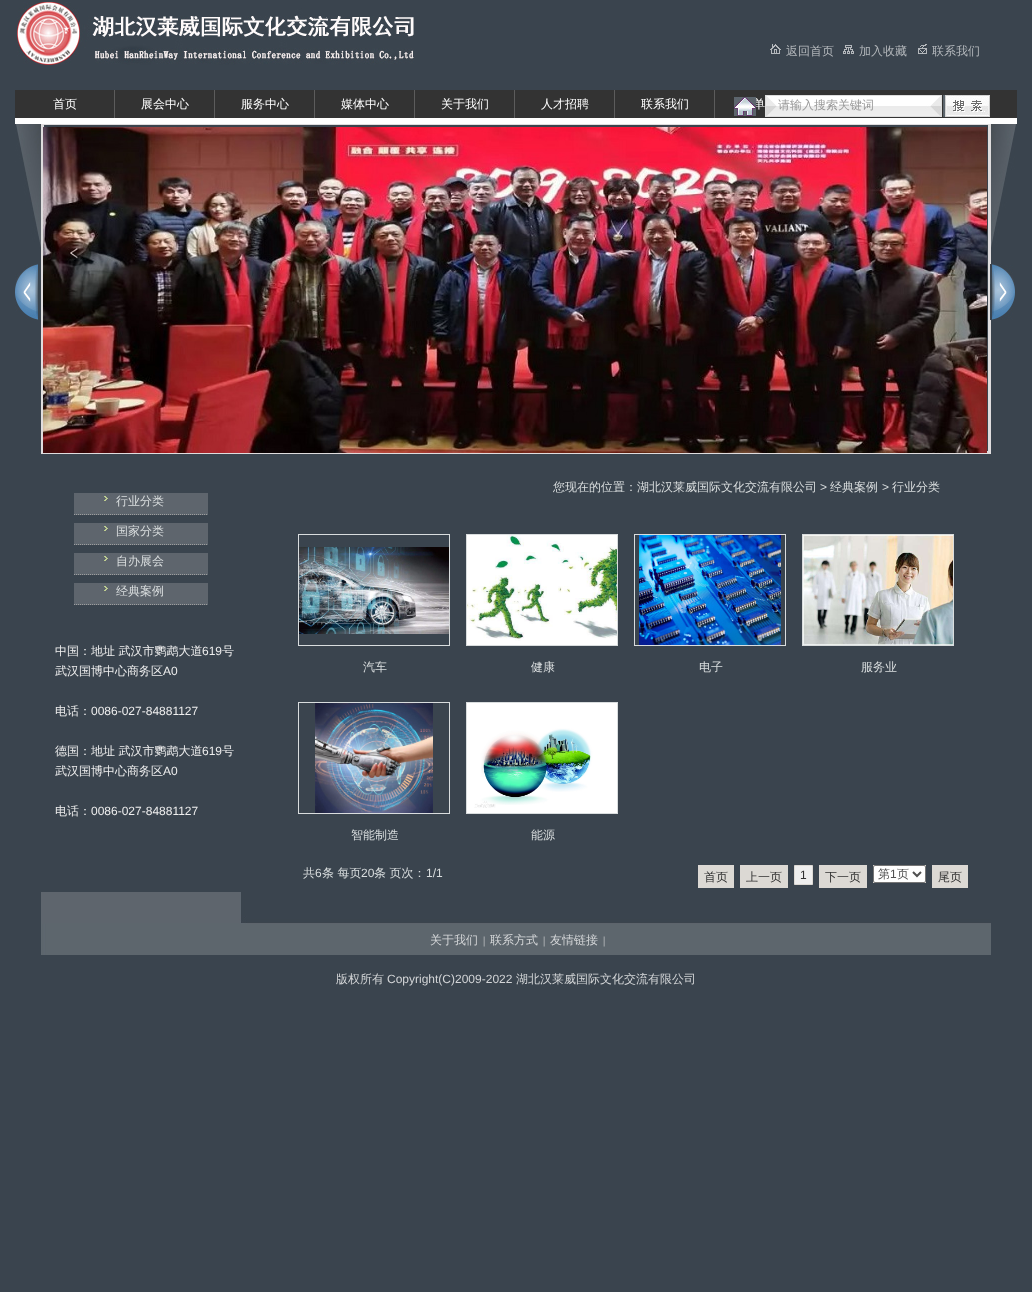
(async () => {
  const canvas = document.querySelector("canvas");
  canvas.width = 1032;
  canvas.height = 1292;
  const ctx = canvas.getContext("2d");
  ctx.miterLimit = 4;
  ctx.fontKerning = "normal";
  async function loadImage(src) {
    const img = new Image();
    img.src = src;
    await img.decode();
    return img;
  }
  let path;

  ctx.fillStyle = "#3a444e";
  ctx.fillRect(0, 0, 1032, 1292);
  ctx.drawImage(await loadImage("img/1.png"), 17, 2, 397, 63);
  ctx.drawImage(await loadImage("img/2.png"), 770, 44, 11, 10);
  ctx.drawImage(await loadImage("img/3.png"), 843, 45, 11, 9);
  ctx.drawImage(await loadImage("img/4.png"), 918, 44, 9, 10);
  for (const [x, y, w, h, color] of [
    [15, 118, 1002, 6, "#ffffff"],
    [15, 90, 1002, 28, "#333333"],
    [114, 90, 1, 28, "#5c5c5c"],
    [214, 90, 1, 28, "#5c5c5c"],
    [314, 90, 1, 28, "#5c5c5c"],
    [414, 90, 1, 28, "#5c5c5c"],
    [514, 90, 1, 28, "#5c5c5c"],
    [614, 90, 1, 28, "#5c5c5c"],
    [714, 90, 1, 28, "#5c5c5c"],
  ]) {
    ctx.fillStyle = color;
    ctx.fillRect(x, y, w, h);
  }
  ctx.drawImage(await loadImage("img/6.png"), 765, 95, 177, 22);
  ctx.drawImage(await loadImage("img/7.png"), 943, 95, 47, 22);
  ctx.drawImage(await loadImage("img/8.png"), 15, 124, 1002, 330);
  ctx.drawImage(await loadImage("img/9.png"), 15, 264, 23, 56);
  ctx.drawImage(await loadImage("img/10.png"), 43, 127, 944, 326);
  ctx.drawImage(await loadImage("img/11.png"), 990, 264, 25, 56);
  ctx.drawImage(await loadImage("img/12.png"), 74, 493, 134, 22);
  ctx.drawImage(await loadImage("img/12.png"), 74, 523, 134, 22);
  ctx.drawImage(await loadImage("img/12.png"), 74, 553, 134, 22);
  ctx.drawImage(await loadImage("img/12.png"), 74, 583, 134, 22);
  ctx.strokeStyle = "#d9ddde";
  ctx.strokeRect(298.5, 534.5, 151, 111);
  ctx.drawImage(await loadImage("img/13.png"), 299, 547, 150, 87);
  ctx.strokeRect(466.5, 534.5, 151, 111);
  ctx.drawImage(await loadImage("img/14.png"), 467, 535, 150, 110);
  ctx.strokeRect(634.5, 534.5, 151, 111);
  ctx.drawImage(await loadImage("img/15.png"), 639, 535, 142, 110);
  ctx.strokeRect(802.5, 534.5, 151, 111);
  ctx.drawImage(await loadImage("img/16.png"), 803, 535, 150, 110);
  ctx.strokeRect(298.5, 702.5, 151, 111);
  ctx.drawImage(await loadImage("img/17.png"), 315, 703, 118, 110);
  ctx.strokeRect(466.5, 702.5, 151, 111);
  ctx.drawImage(await loadImage("img/18.png"), 467, 703, 150, 110);
  ctx.fillStyle = "#dcd9d4";
  ctx.fillRect(698, 865, 36, 23);
  ctx.fillRect(740, 865, 48, 23);
  ctx.fillStyle = "#eeeeee";
  ctx.beginPath();
  ctx.rect(794.5, 865.5, 18, 19);
  ctx.fill();
  ctx.strokeStyle = "#dcd9d4";
  ctx.stroke();
  ctx.fillStyle = "#dcd9d4";
  ctx.fillRect(819, 865, 48, 23);
  ctx.fillRect(873, 865, 53, 18);
  ctx.fillStyle = "#ffffff";
  ctx.beginPath();
  ctx.roundRect(873.5, 865.5, 52, 17, 1.5);
  ctx.fill();
  ctx.strokeStyle = "#767676";
  ctx.stroke();
  path = new Path2D("M913 872L917 876L921 872");
  ctx.strokeStyle = "#505050";
  ctx.lineWidth = 2;
  ctx.stroke(path);
  ctx.fillStyle = "#dcd9d4";
  ctx.fillRect(932, 865, 36, 23);
  ctx.drawImage(await loadImage("img/19.png"), 41, 892, 950, 63);
  ctx.font = "500 12px WenQuanYi Zen Hei";
  ctx.fillStyle = "#b4b8bc";
  for (const [text, x, y] of [
    ["返回首页", 786, 55],
    ["加入收藏", 859, 55],
    ["联系我们", 932, 55],
  ]) {
    ctx.fillText(text, x, y);
  }
  ctx.fillStyle = "#ffffff";
  for (const [text, x, y] of [
    ["首页", 53, 108],
    ["展会中心", 141, 108],
    ["服务中心", 241, 108],
    ["媒体中心", 341, 108],
    ["关于我们", 441, 108],
    ["人才招聘", 541, 108],
    ["联系我们", 641, 108],
    ["单", 753, 108],
  ]) {
    ctx.fillText(text, x, y);
  }
  ctx.drawImage(await loadImage("img/5.png"), 734, 97, 22, 19);
  ctx.fillStyle = "#999999";
  ctx.fillText("请输入搜索关键词", 778, 109);
  ctx.fillStyle = "#dadedf";
  ctx.fillText("您现在的位置：湖北汉莱威国际文化交流有限公司", 553, 491);
  ctx.font = "12px Liberation Sans";
  ctx.fillText(">", 820, 491);
  ctx.font = "500 12px WenQuanYi Zen Hei";
  ctx.fillText("经典案例", 830, 491);
  ctx.font = "12px Liberation Sans";
  ctx.fillText(">", 882, 491);
  ctx.font = "500 12px WenQuanYi Zen Hei";
  for (const [text, x, y] of [
    ["行业分类", 892, 491],
    ["行业分类", 116, 505],
    ["国家分类", 116, 535],
    ["自办展会", 116, 565],
    ["经典案例", 116, 595],
  ]) {
    ctx.fillText(text, x, y);
  }
  ctx.fillStyle = "#eeeeee";
  ctx.fillText("中国：地址 武汉市鹦鹉大道", 55, 655);
  ctx.font = "12px Liberation Sans";
  ctx.fillText("619", 202, 655);
  ctx.font = "500 12px WenQuanYi Zen Hei";
  ctx.fillText("号", 222, 655);
  ctx.fillText("武汉国博中心商务区", 55, 675);
  ctx.font = "12px Liberation Sans";
  ctx.fillText("A0", 163, 675);
  ctx.font = "500 12px WenQuanYi Zen Hei";
  ctx.fillText("电话：", 55, 715);
  ctx.font = "12px Liberation Sans";
  ctx.fillText("0086-027-84881127", 91, 715);
  ctx.font = "500 12px WenQuanYi Zen Hei";
  ctx.fillText("德国：地址 武汉市鹦鹉大道", 55, 755);
  ctx.font = "12px Liberation Sans";
  ctx.fillText("619", 202, 755);
  ctx.font = "500 12px WenQuanYi Zen Hei";
  ctx.fillText("号", 222, 755);
  ctx.fillText("武汉国博中心商务区", 55, 775);
  ctx.font = "12px Liberation Sans";
  ctx.fillText("A0", 163, 775);
  ctx.font = "500 12px WenQuanYi Zen Hei";
  ctx.fillText("电话：", 55, 815);
  ctx.font = "12px Liberation Sans";
  ctx.fillText("0086-027-84881127", 91, 815);
  ctx.font = "500 12px WenQuanYi Zen Hei";
  ctx.fillStyle = "#dadedf";
  for (const [text, x, y] of [
    ["汽车", 363, 671],
    ["健康", 531, 671],
    ["电子", 699, 671],
    ["服务业", 861, 671],
    ["智能制造", 351, 839],
    ["能源", 531, 839],
    ["共", 303, 877],
  ]) {
    ctx.fillText(text, x, y);
  }
  ctx.font = "12px Liberation Sans";
  ctx.fillText("6", 315, 877);
  ctx.font = "500 12px WenQuanYi Zen Hei";
  ctx.fillText("条 每页", 322, 877);
  ctx.font = "12px Liberation Sans";
  ctx.fillText("20", 361, 877);
  ctx.font = "500 12px WenQuanYi Zen Hei";
  ctx.fillText("条 页次：", 374, 877);
  ctx.font = "12px Liberation Sans";
  ctx.fillText("1/1", 426, 877);
  ctx.font = "500 12px WenQuanYi Zen Hei";
  ctx.fillStyle = "#303030";
  ctx.fillText("首页", 704, 881);
  ctx.fillText("上一页", 746, 881);
  ctx.font = "12px Liberation Sans";
  ctx.fillText("1", 800, 879);
  ctx.font = "500 12px WenQuanYi Zen Hei";
  ctx.fillText("下一页", 825, 881);
  ctx.fillStyle = "#505050";
  ctx.fillText("第", 878, 878);
  ctx.font = "12px Liberation Sans";
  ctx.fillText("1", 890, 878);
  ctx.font = "500 12px WenQuanYi Zen Hei";
  ctx.fillText("页", 897, 878);
  ctx.fillStyle = "#303030";
  ctx.fillText("尾页", 938, 881);
  ctx.fillStyle = "#d3d5d7";
  ctx.fillText("关于我们", 430, 944);
  ctx.font = "11px Liberation Serif";
  ctx.fillText("|", 483, 944);
  ctx.font = "500 12px WenQuanYi Zen Hei";
  ctx.fillText("联系方式", 490, 944);
  ctx.font = "11px Liberation Serif";
  ctx.fillText("|", 543, 944);
  ctx.font = "500 12px WenQuanYi Zen Hei";
  ctx.fillText("友情链接", 550, 944);
  ctx.font = "11px Liberation Serif";
  ctx.fillText("|", 603, 944);
  ctx.font = "500 12px WenQuanYi Zen Hei";
  ctx.fillText("版权所有", 336, 983);
  ctx.font = "12px Liberation Sans";
  ctx.fillText("Copyright(C)2009-2022", 387, 983);
  ctx.font = "500 12px WenQuanYi Zen Hei";
  ctx.fillText("湖北汉莱威国际文化交流有限公司", 516, 983);
})();
